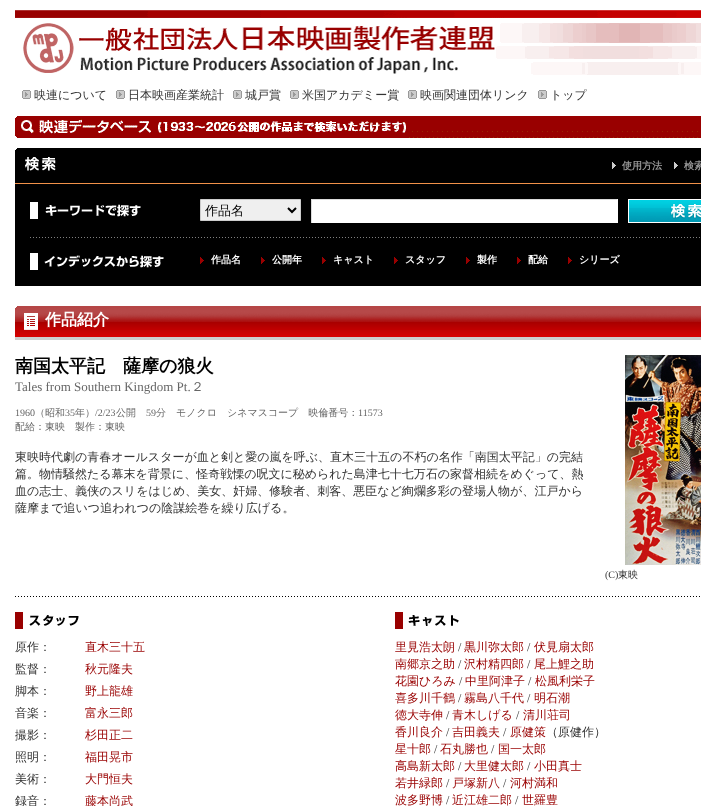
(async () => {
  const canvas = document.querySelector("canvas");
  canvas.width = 701;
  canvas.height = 806;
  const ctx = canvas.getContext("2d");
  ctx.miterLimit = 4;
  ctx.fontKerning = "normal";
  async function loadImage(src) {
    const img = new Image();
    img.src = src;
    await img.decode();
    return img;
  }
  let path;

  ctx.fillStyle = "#ffffff";
  ctx.fillRect(0, 0, 701, 806);
  ctx.drawImage(await loadImage("img/1.png"), 15, 10, 686, 65);
  ctx.drawImage(await loadImage("img/2.png"), 22, 90, 9, 9);
  ctx.drawImage(await loadImage("img/2.png"), 116, 90, 9, 9);
  ctx.drawImage(await loadImage("img/2.png"), 233, 90, 9, 9);
  ctx.drawImage(await loadImage("img/2.png"), 290, 90, 9, 9);
  ctx.drawImage(await loadImage("img/2.png"), 408, 90, 9, 9);
  ctx.drawImage(await loadImage("img/2.png"), 538, 90, 9, 9);
  ctx.drawImage(await loadImage("img/3.png"), 15, 116, 686, 22);
  ctx.fillStyle = "#000000";
  ctx.fillRect(15, 148, 686, 138);
  ctx.drawImage(await loadImage("img/4.png"), 15, 148, 2, 2);
  ctx.fillStyle = "#f19149";
  ctx.fillRect(15, 183, 686, 1);
  ctx.drawImage(await loadImage("img/5.png"), 25, 157, 31, 14);
  ctx.drawImage(await loadImage("img/6.png"), 612, 162, 4, 7);
  ctx.drawImage(await loadImage("img/6.png"), 674, 162, 4, 7);
  ctx.drawImage(await loadImage("img/7.png"), 30, 237, 670, 1);
  ctx.drawImage(await loadImage("img/8.png"), 30, 202, 111, 17);
  ctx.fillStyle = "#efefef";
  ctx.beginPath();
  ctx.rect(200.5, 199.5, 100, 21);
  ctx.fill();
  ctx.strokeStyle = "#cccccc";
  ctx.stroke();
  path = new Path2D("M288 208L292 212L296 208");
  ctx.strokeStyle = "#000000";
  ctx.lineWidth = 2;
  ctx.stroke(path);
  for (const [x, y, w, h, color] of [
    [312, 200, 305, 23, "#ffffff"],
    [311, 199, 307, 1, "#dbdbdb"],
    [617, 199, 1, 24, "#ffffff"],
    [311, 199, 1, 24, "#dbdbdb"],
  ]) {
    ctx.fillStyle = color;
    ctx.fillRect(x, y, w, h);
  }
  ctx.drawImage(await loadImage("img/9.png"), 628, 199, 73, 24);
  ctx.drawImage(await loadImage("img/10.png"), 30, 253, 134, 17);
  ctx.drawImage(await loadImage("img/11.png"), 200, 257, 4, 7);
  ctx.drawImage(await loadImage("img/11.png"), 261, 257, 4, 7);
  ctx.drawImage(await loadImage("img/11.png"), 322, 257, 4, 7);
  ctx.drawImage(await loadImage("img/11.png"), 394, 257, 4, 7);
  ctx.drawImage(await loadImage("img/11.png"), 466, 257, 4, 7);
  ctx.drawImage(await loadImage("img/11.png"), 517, 257, 4, 7);
  ctx.drawImage(await loadImage("img/11.png"), 568, 257, 4, 7);
  ctx.fillStyle = "#d40000";
  ctx.fillRect(15, 335, 686, 2);
  ctx.drawImage(await loadImage("img/12.png"), 15, 306, 686, 29);
  ctx.fillStyle = "#cccccc";
  ctx.fillRect(15, 337, 686, 3);
  ctx.drawImage(await loadImage("img/13.png"), 15, 596, 685, 1);
  ctx.drawImage(await loadImage("img/14.png"), 625, 355, 76, 210);
  ctx.drawImage(await loadImage("img/15.png"), 15, 612, 64, 17);
  ctx.drawImage(await loadImage("img/16.png"), 395, 612, 64, 17);
  ctx.font = "500 12px WenQuanYi Zen Hei";
  ctx.fillStyle = "#333333";
  for (const [text, x, y] of [
    ["映連について", 34, 99],
    ["日本映画産業統計", 128, 99],
    ["城戸賞", 245, 99],
    ["米国アカデミー賞", 302, 99],
    ["映画関連団体リンク", 420, 99],
    ["トップ", 550, 99],
  ]) {
    ctx.fillText(text, x, y);
  }
  ctx.font = "bold 10px WenQuanYi Zen Hei";
  ctx.fillStyle = "#999999";
  ctx.fillText("使用方法", 622, 169);
  ctx.fillText("検索", 684, 169);
  ctx.font = "500 13px WenQuanYi Zen Hei";
  ctx.fillStyle = "#000000";
  ctx.fillText("作品名", 205, 215);
  ctx.font = "bold 10px WenQuanYi Zen Hei";
  ctx.fillStyle = "#ffffff";
  for (const [text, x, y] of [
    ["作品名", 211, 263],
    ["公開年", 272, 263],
    ["キャスト", 333, 263],
    ["スタッフ", 405, 263],
    ["製作", 477, 263],
    ["配給", 528, 263],
    ["シリーズ", 579, 263],
  ]) {
    ctx.fillText(text, x, y);
  }
  ctx.font = "bold 16px WenQuanYi Zen Hei";
  ctx.fillText("作品紹介", 45, 325);
  ctx.font = "bold 18px WenQuanYi Zen Hei";
  ctx.fillStyle = "#000000";
  ctx.fillText("南国太平記　薩摩の狼火", 15, 372);
  ctx.font = "13px Liberation Serif";
  ctx.fillStyle = "#666666";
  ctx.fillText("Tales from Southern Kingdom Pt.", 15, 391);
  ctx.font = "500 13px WenQuanYi Zen Hei";
  ctx.fillText("２", 191, 391);
  ctx.font = "10px Liberation Serif";
  ctx.fillText("1960", 15, 416);
  ctx.font = "500 10px WenQuanYi Zen Hei";
  ctx.fillText("（昭和", 35, 416);
  ctx.font = "10px Liberation Serif";
  ctx.fillText("35", 65, 416);
  ctx.font = "500 10px WenQuanYi Zen Hei";
  ctx.fillText("年）", 75, 416);
  ctx.font = "10px Liberation Serif";
  ctx.fillText("/2/23", 95, 416);
  ctx.font = "500 10px WenQuanYi Zen Hei";
  ctx.fillText("公開", 116, 416);
  ctx.font = "10px Liberation Serif";
  ctx.fillText("59", 146, 416);
  ctx.font = "500 10px WenQuanYi Zen Hei";
  ctx.fillText("分　モノクロ　シネマスコープ　映倫番号：", 156, 416);
  ctx.font = "10px Liberation Serif";
  ctx.fillText("11573", 358, 416);
  ctx.font = "500 10px WenQuanYi Zen Hei";
  ctx.fillText("配給：東映　製作：東映", 15, 430);
  ctx.font = "500 12px WenQuanYi Zen Hei";
  ctx.fillStyle = "#333333";
  for (const [text, x, y] of [
    ["東映時代劇の青春オールスターが血と剣と愛の嵐を呼ぶ、直木三十五の不朽の名作「南国太平記」の完結", 15, 461],
    ["篇。物情騒然たる幕末を背景に、怪奇戦慄の呪文に秘められた島津七十七万石の家督相続をめぐって、熱", 15, 478],
    ["血の志士、義侠のスリをはじめ、美女、奸婦、修験者、刺客、悪臣など絢爛多彩の登場人物が、江戸から", 15, 495],
    ["薩摩まで追いつ追われつの陰謀絵巻を繰り広げる。", 15, 512],
  ]) {
    ctx.fillText(text, x, y);
  }
  ctx.font = "10px Liberation Serif";
  ctx.fillText("(C)", 605, 578);
  ctx.font = "500 10px WenQuanYi Zen Hei";
  ctx.fillText("東映", 618, 578);
  ctx.font = "500 12px WenQuanYi Zen Hei";
  ctx.fillText("原作：", 15, 651);
  ctx.fillStyle = "#990000";
  ctx.fillText("直木三十五", 85, 651);
  ctx.fillStyle = "#333333";
  ctx.fillText("監督：", 15, 673);
  ctx.fillStyle = "#990000";
  ctx.fillText("秋元隆夫", 85, 673);
  ctx.fillStyle = "#333333";
  ctx.fillText("脚本：", 15, 695);
  ctx.fillStyle = "#990000";
  ctx.fillText("野上龍雄", 85, 695);
  ctx.fillStyle = "#333333";
  ctx.fillText("音楽：", 15, 717);
  ctx.fillStyle = "#990000";
  ctx.fillText("富永三郎", 85, 717);
  ctx.fillStyle = "#333333";
  ctx.fillText("撮影：", 15, 739);
  ctx.fillStyle = "#990000";
  ctx.fillText("杉田正二", 85, 739);
  ctx.fillStyle = "#333333";
  ctx.fillText("照明：", 15, 761);
  ctx.fillStyle = "#990000";
  ctx.fillText("福田晃市", 85, 761);
  ctx.fillStyle = "#333333";
  ctx.fillText("美術：", 15, 783);
  ctx.fillStyle = "#990000";
  ctx.fillText("大門恒夫", 85, 783);
  ctx.fillStyle = "#333333";
  ctx.fillText("録音：", 15, 805);
  ctx.fillStyle = "#990000";
  ctx.fillText("藤本尚武", 85, 805);
  ctx.fillText("里見浩太朗", 395, 651);
  ctx.font = "12px Liberation Serif";
  ctx.fillStyle = "#333333";
  ctx.fillText("/", 458, 651);
  ctx.font = "500 12px WenQuanYi Zen Hei";
  ctx.fillStyle = "#990000";
  ctx.fillText("黒川弥太郎", 464, 651);
  ctx.font = "12px Liberation Serif";
  ctx.fillStyle = "#333333";
  ctx.fillText("/", 527, 651);
  ctx.font = "500 12px WenQuanYi Zen Hei";
  ctx.fillStyle = "#990000";
  ctx.fillText("伏見扇太郎", 534, 651);
  ctx.fillText("南郷京之助", 395, 668);
  ctx.font = "12px Liberation Serif";
  ctx.fillStyle = "#333333";
  ctx.fillText("/", 458, 668);
  ctx.font = "500 12px WenQuanYi Zen Hei";
  ctx.fillStyle = "#990000";
  ctx.fillText("沢村精四郎", 464, 668);
  ctx.font = "12px Liberation Serif";
  ctx.fillStyle = "#333333";
  ctx.fillText("/", 527, 668);
  ctx.font = "500 12px WenQuanYi Zen Hei";
  ctx.fillStyle = "#990000";
  ctx.fillText("尾上鯉之助", 534, 668);
  ctx.fillText("花園ひろみ", 395, 685);
  ctx.font = "12px Liberation Serif";
  ctx.fillStyle = "#333333";
  ctx.fillText("/", 459, 685);
  ctx.font = "500 12px WenQuanYi Zen Hei";
  ctx.fillStyle = "#990000";
  ctx.fillText("中里阿津子", 465, 685);
  ctx.font = "12px Liberation Serif";
  ctx.fillStyle = "#333333";
  ctx.fillText("/", 528, 685);
  ctx.font = "500 12px WenQuanYi Zen Hei";
  ctx.fillStyle = "#990000";
  ctx.fillText("松風利栄子", 535, 685);
  ctx.fillText("喜多川千鶴", 395, 702);
  ctx.font = "12px Liberation Serif";
  ctx.fillStyle = "#333333";
  ctx.fillText("/", 458, 702);
  ctx.font = "500 12px WenQuanYi Zen Hei";
  ctx.fillStyle = "#990000";
  ctx.fillText("霧島八千代", 464, 702);
  ctx.font = "12px Liberation Serif";
  ctx.fillStyle = "#333333";
  ctx.fillText("/", 527, 702);
  ctx.font = "500 12px WenQuanYi Zen Hei";
  ctx.fillStyle = "#990000";
  ctx.fillText("明石潮", 534, 702);
  ctx.fillText("徳大寺伸", 395, 719);
  ctx.font = "12px Liberation Serif";
  ctx.fillStyle = "#333333";
  ctx.fillText("/", 446, 719);
  ctx.font = "500 12px WenQuanYi Zen Hei";
  ctx.fillStyle = "#990000";
  ctx.fillText("青木しげる", 452, 719);
  ctx.font = "12px Liberation Serif";
  ctx.fillStyle = "#333333";
  ctx.fillText("/", 516, 719);
  ctx.font = "500 12px WenQuanYi Zen Hei";
  ctx.fillStyle = "#990000";
  ctx.fillText("清川荘司", 523, 719);
  ctx.fillText("香川良介", 395, 736);
  ctx.font = "12px Liberation Serif";
  ctx.fillStyle = "#333333";
  ctx.fillText("/", 446, 736);
  ctx.font = "500 12px WenQuanYi Zen Hei";
  ctx.fillStyle = "#990000";
  ctx.fillText("吉田義夫", 452, 736);
  ctx.font = "12px Liberation Serif";
  ctx.fillStyle = "#333333";
  ctx.fillText("/", 503, 736);
  ctx.font = "500 12px WenQuanYi Zen Hei";
  ctx.fillStyle = "#990000";
  ctx.fillText("原健策", 510, 736);
  ctx.fillStyle = "#333333";
  ctx.fillText("（原健作）", 546, 736);
  ctx.fillStyle = "#990000";
  ctx.fillText("星十郎", 395, 753);
  ctx.font = "12px Liberation Serif";
  ctx.fillStyle = "#333333";
  ctx.fillText("/", 434, 753);
  ctx.font = "500 12px WenQuanYi Zen Hei";
  ctx.fillStyle = "#990000";
  ctx.fillText("石丸勝也", 440, 753);
  ctx.font = "12px Liberation Serif";
  ctx.fillStyle = "#333333";
  ctx.fillText("/", 491, 753);
  ctx.font = "500 12px WenQuanYi Zen Hei";
  ctx.fillStyle = "#990000";
  ctx.fillText("国一太郎", 498, 753);
  ctx.fillText("高島新太郎", 395, 770);
  ctx.font = "12px Liberation Serif";
  ctx.fillStyle = "#333333";
  ctx.fillText("/", 458, 770);
  ctx.font = "500 12px WenQuanYi Zen Hei";
  ctx.fillStyle = "#990000";
  ctx.fillText("大里健太郎", 464, 770);
  ctx.font = "12px Liberation Serif";
  ctx.fillStyle = "#333333";
  ctx.fillText("/", 527, 770);
  ctx.font = "500 12px WenQuanYi Zen Hei";
  ctx.fillStyle = "#990000";
  ctx.fillText("小田真士", 534, 770);
  ctx.fillText("若井緑郎", 395, 787);
  ctx.font = "12px Liberation Serif";
  ctx.fillStyle = "#333333";
  ctx.fillText("/", 446, 787);
  ctx.font = "500 12px WenQuanYi Zen Hei";
  ctx.fillStyle = "#990000";
  ctx.fillText("戸塚新八", 452, 787);
  ctx.font = "12px Liberation Serif";
  ctx.fillStyle = "#333333";
  ctx.fillText("/", 503, 787);
  ctx.font = "500 12px WenQuanYi Zen Hei";
  ctx.fillStyle = "#990000";
  ctx.fillText("河村満和", 510, 787);
  ctx.fillText("波多野博", 395, 804);
  ctx.font = "12px Liberation Serif";
  ctx.fillStyle = "#333333";
  ctx.fillText("/", 446, 804);
  ctx.font = "500 12px WenQuanYi Zen Hei";
  ctx.fillStyle = "#990000";
  ctx.fillText("近江雄二郎", 452, 804);
  ctx.font = "12px Liberation Serif";
  ctx.fillStyle = "#333333";
  ctx.fillText("/", 515, 804);
  ctx.font = "500 12px WenQuanYi Zen Hei";
  ctx.fillStyle = "#990000";
  ctx.fillText("世羅豊", 522, 804);
})();
